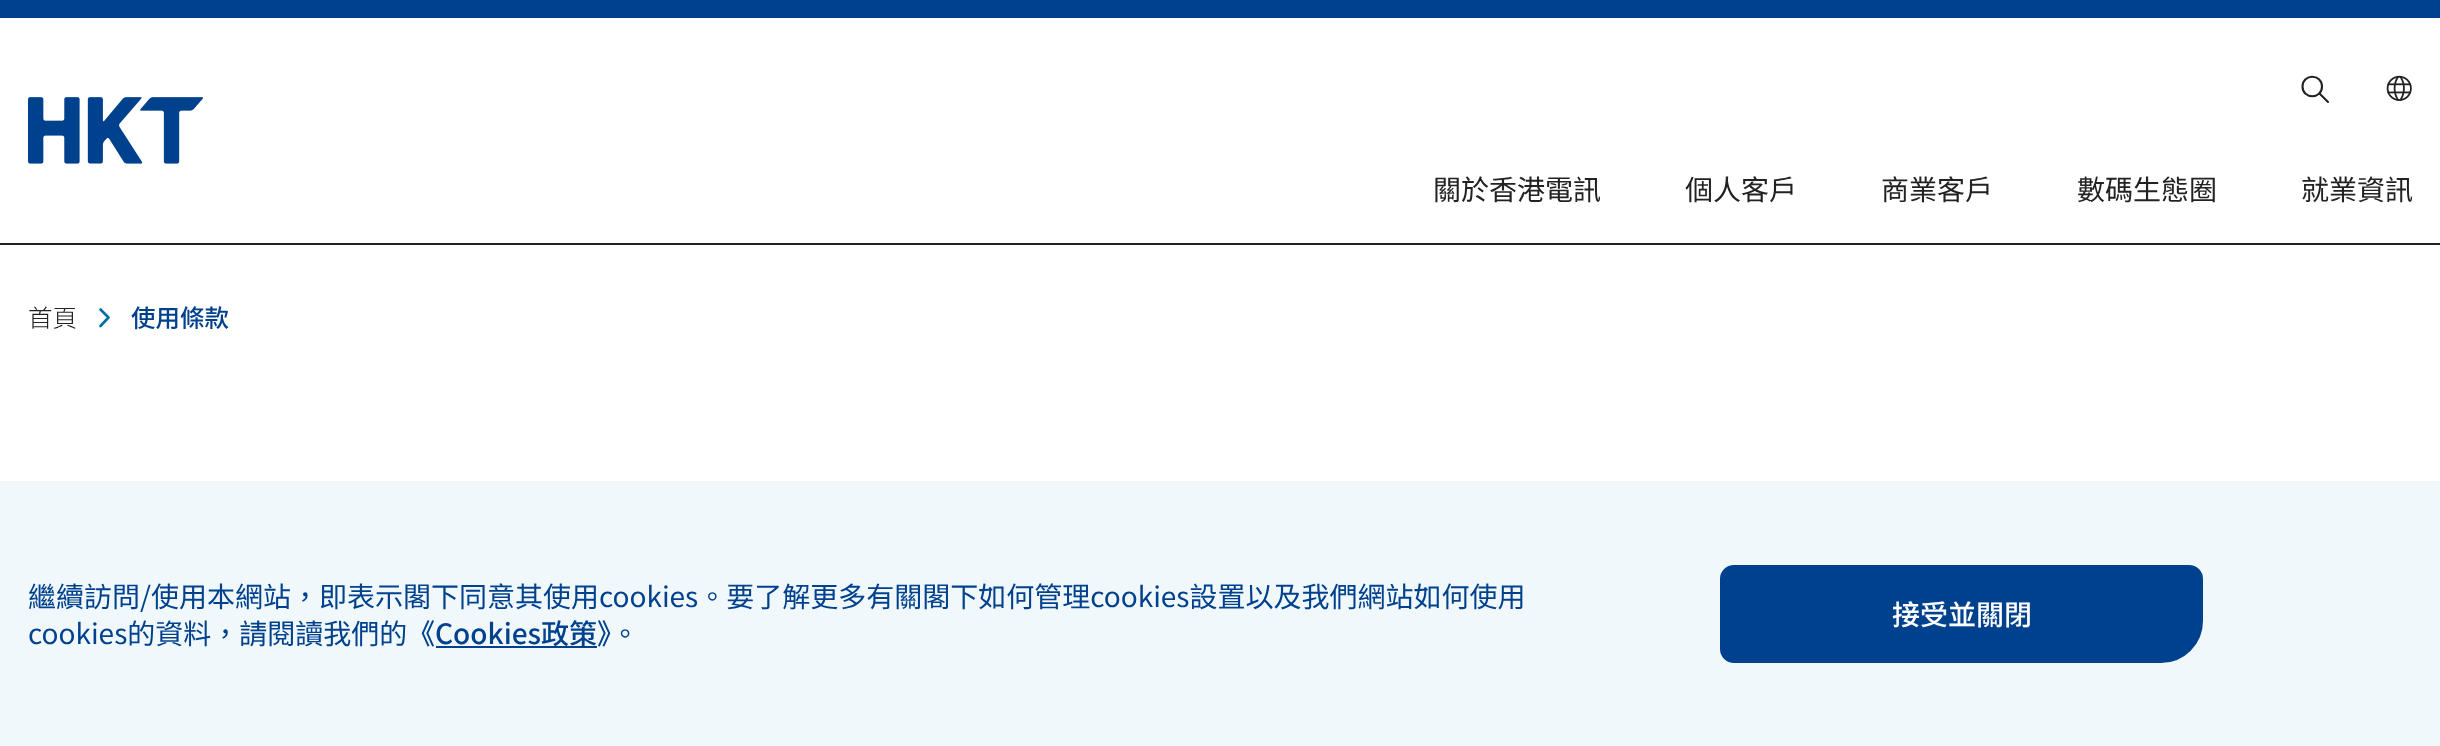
(async () => {
  const canvas = document.querySelector("canvas");
  canvas.width = 2440;
  canvas.height = 746;
  const ctx = canvas.getContext("2d");
  ctx.miterLimit = 4;
  ctx.fontKerning = "normal";
  async function loadImage(src) {
    const img = new Image();
    img.src = src;
    await img.decode();
    return img;
  }
  let path;

  ctx.fillStyle = "#ffffff";
  ctx.fillRect(0, 0, 2440, 746);
  ctx.fillStyle = "#00418e";
  ctx.fillRect(0, 0, 2440, 18);
  ctx.fillStyle = "#222222";
  ctx.fillRect(0, 243, 2440, 2);
  ctx.drawImage(await loadImage("img/1.png"), 28, 97, 175, 67);
  path = new Path2D("M2328 102L2319.5 93.5M2322 86.5C2322 99.5 2302.5 99.5 2302.5 86.5C2302.5 73.5 2322 73.5 2322 86.5Z");
  ctx.strokeStyle = "#222222";
  ctx.lineWidth = 2.1;
  ctx.lineCap = "round";
  ctx.lineJoin = "round";
  ctx.stroke(path);
  ctx.drawImage(await loadImage("img/2.png"), 2386, 75, 26, 26);
  path = new Path2D("M100.5 309.5L108.5 317.5L100.5 326");
  ctx.strokeStyle = "#006ea5";
  ctx.lineWidth = 2.6;
  ctx.stroke(path);
  ctx.fillStyle = "#f1f8fc";
  ctx.fillRect(0, 481, 2440, 265);
  ctx.fillStyle = "#00418e";
  ctx.fillRect(436, 646, 161, 2);
  ctx.beginPath();
  ctx.roundRect(1721, 566, 481, 96, [13, 13, 41, 13]);
  ctx.fill();
  ctx.strokeStyle = "#00418e";
  ctx.lineWidth = 2;
  ctx.lineJoin = "miter";
  ctx.stroke();
  ctx.font = "28px Noto Sans TC";
  ctx.fillStyle = "#222222";
  for (const [text, x, y] of [
    ["關於香港電訊", 1433, 200],
    ["個人客戶", 1685, 200],
    ["商業客戶", 1881, 200],
    ["數碼生態圈", 2077, 200],
    ["就業資訊", 2301, 200],
  ]) {
    ctx.fillText(text, x, y);
  }
  ctx.font = "300 24.5px Noto Sans TC";
  ctx.fillText("首頁", 28, 327);
  ctx.font = "500 24.5px Noto Sans TC";
  ctx.fillStyle = "#00418e";
  ctx.fillText("使用條款", 131, 327);
  ctx.font = "28px Noto Sans TC";
  ctx.fillText("繼續訪問/使用本網站，即表示閣下同意其使用cookies。要了解更多有關閣下如何管理cookies設置以及我們網站如何使用", 28, 607);
  ctx.fillText("cookies的資料，請閱讀我們的", 28, 644);
  ctx.font = "500 28px Noto Sans TC";
  ctx.fillText("《", 407, 644);
  ctx.fillText("Cookies政策》", 435, 644);
  ctx.font = "28px Noto Sans TC";
  ctx.fillText("。", 611, 644);
  ctx.font = "500 28px Noto Sans TC";
  ctx.fillStyle = "#ffffff";
  ctx.fillText("接受並關閉", 1892, 625);
})();
